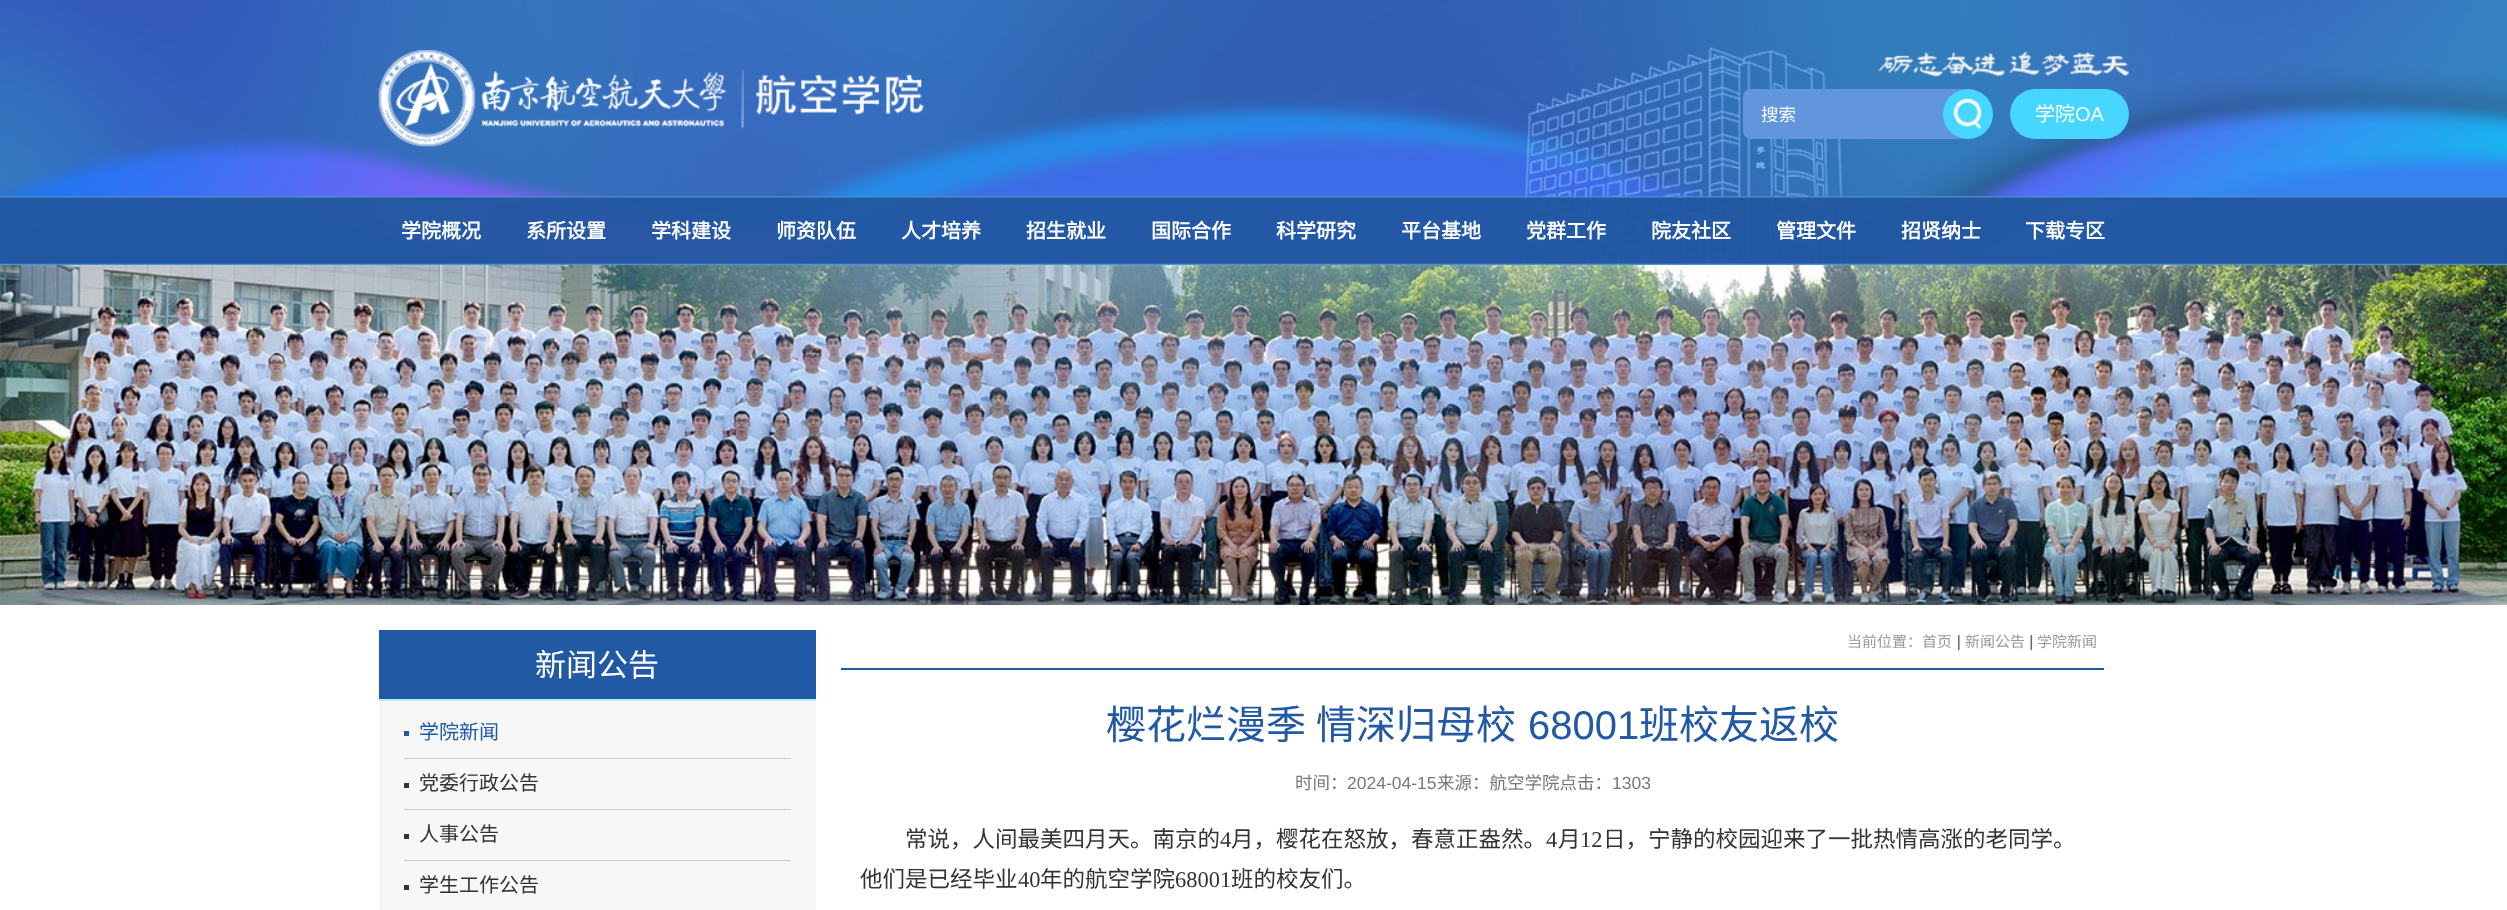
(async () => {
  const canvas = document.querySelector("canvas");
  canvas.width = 2507;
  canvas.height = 910;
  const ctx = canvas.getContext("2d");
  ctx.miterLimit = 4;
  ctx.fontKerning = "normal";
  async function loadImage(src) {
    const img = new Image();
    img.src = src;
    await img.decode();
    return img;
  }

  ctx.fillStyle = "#ffffff";
  ctx.fillRect(0, 0, 2507, 910);
  ctx.drawImage(await loadImage("img/1.png"), 0, 0, 2507, 197);
  ctx.drawImage(await loadImage("img/2.png"), 378, 50, 546, 97);
  ctx.drawImage(await loadImage("img/3.png"), 1878, 51, 251, 26);
  ctx.fillStyle = "#6195dc";
  ctx.beginPath();
  ctx.roundRect(1743, 89, 225, 50, 8);
  ctx.fill();
  ctx.fillStyle = "#46d6ff";
  ctx.beginPath();
  ctx.arc(1968, 114, 25, 0, Math.PI * 2);
  ctx.fill();
  ctx.drawImage(await loadImage("img/4.png"), 1953, 98, 29, 31);
  ctx.beginPath();
  ctx.roundRect(2010, 89, 119, 50, 25);
  ctx.fill();
  ctx.drawImage(await loadImage("img/5.png"), 0, 196, 2507, 69);
  ctx.drawImage(await loadImage("img/6.png"), 0, 265, 2507, 340);
  for (const [x, y, w, h, color] of [
    [379, 630, 437, 69, "#2159a4"],
    [379, 699, 437, 2, "#b3f0ff"],
    [379, 701, 437, 209, "#f7f7f7"],
    [404, 758, 387, 1, "#cccccc"],
    [404, 731, 5, 5, "#2159a4"],
    [404, 809, 387, 1, "#cccccc"],
    [404, 783, 5, 5, "#333333"],
    [404, 860, 387, 1, "#cccccc"],
    [404, 834, 5, 5, "#333333"],
    [404, 885, 5, 5, "#333333"],
  ]) {
    ctx.fillStyle = color;
    ctx.fillRect(x, y, w, h);
  }
  ctx.drawImage(await loadImage("img/7.png"), 1958, 634, 2, 17);
  ctx.drawImage(await loadImage("img/8.png"), 2030, 634, 3, 17);
  ctx.fillStyle = "#2159a4";
  ctx.fillRect(841, 668, 1263, 2);
  ctx.font = "17.5px Noto Sans CJK SC";
  ctx.fillStyle = "#ffffff";
  ctx.fillText("搜索", 1761, 121);
  ctx.font = "20px Noto Sans CJK SC";
  ctx.fillText("学院", 2035, 121);
  ctx.font = "20px Liberation Sans";
  ctx.fillText("OA", 2075, 121);
  ctx.font = "bold 20px Noto Sans CJK SC";
  for (const [text, x, y] of [
    ["学院概况", 401, 238],
    ["系所设置", 526, 238],
    ["学科建设", 651, 238],
    ["师资队伍", 776, 238],
    ["人才培养", 901, 238],
    ["招生就业", 1026, 238],
    ["国际合作", 1151, 238],
    ["科学研究", 1276, 238],
    ["平台基地", 1401, 238],
    ["党群工作", 1526, 238],
    ["院友社区", 1651, 238],
    ["管理文件", 1776, 238],
    ["招贤纳士", 1901, 238],
    ["下载专区", 2025, 238],
  ]) {
    ctx.fillText(text, x, y);
  }
  ctx.font = "31px Noto Sans CJK SC";
  ctx.fillText("新闻公告", 535, 676);
  ctx.font = "20px Noto Sans CJK SC";
  ctx.fillStyle = "#2159a4";
  ctx.fillText("学院新闻", 419, 739);
  ctx.fillStyle = "#333333";
  for (const [text, x, y] of [
    ["党委行政公告", 419, 790],
    ["人事公告", 419, 841],
    ["学生工作公告", 419, 892],
  ]) {
    ctx.fillText(text, x, y);
  }
  ctx.font = "15px Noto Sans CJK SC";
  ctx.fillStyle = "#999999";
  for (const [text, x, y] of [
    ["当前位置：首页", 1847, 647],
    ["新闻公告", 1965, 647],
    ["学院新闻", 2037, 647],
  ]) {
    ctx.fillText(text, x, y);
  }
  ctx.wordSpacing = "1px";
  ctx.font = "40px Noto Sans CJK SC";
  ctx.fillStyle = "#2159a4";
  ctx.fillText("樱花烂漫季 情深归母校", 1106, 739);
  ctx.wordSpacing = "0px";
  ctx.font = "40px Liberation Sans";
  ctx.fillText("68001", 1528, 739);
  ctx.font = "40px Noto Sans CJK SC";
  ctx.fillText("班校友返校", 1639, 739);
  ctx.font = "17.5px Noto Sans CJK SC";
  ctx.fillStyle = "#787878";
  ctx.fillText("时间：", 1295, 789);
  ctx.font = "17.5px Liberation Sans";
  ctx.fillText("2024-04-15", 1347, 789);
  ctx.font = "17.5px Noto Sans CJK SC";
  ctx.fillText("来源：航空学院点击：", 1437, 789);
  ctx.font = "17.5px Liberation Sans";
  ctx.fillText("1303", 1612, 789);
  ctx.font = "22.5px Noto Sans CJK SC";
  ctx.fillStyle = "#333333";
  ctx.fillText("常说，人间最美四月天。南京的", 905, 847);
  ctx.font = "22.5px Liberation Serif";
  ctx.fillText("4", 1220, 847);
  ctx.font = "22.5px Noto Sans CJK SC";
  ctx.fillText("月，樱花在怒放，春意正盎然。", 1231, 847);
  ctx.font = "22.5px Liberation Serif";
  ctx.fillText("4", 1546, 847);
  ctx.font = "22.5px Noto Sans CJK SC";
  ctx.fillText("月", 1558, 847);
  ctx.font = "22.5px Liberation Serif";
  ctx.fillText("12", 1580, 847);
  ctx.font = "22.5px Noto Sans CJK SC";
  ctx.fillText("日，宁静的校园迎来了一批热情高涨的老同学。", 1603, 847);
  ctx.fillText("他们是已经毕业", 860, 887);
  ctx.font = "22.5px Liberation Serif";
  ctx.fillText("40", 1018, 887);
  ctx.font = "22.5px Noto Sans CJK SC";
  ctx.fillText("年的航空学院", 1040, 887);
  ctx.font = "22.5px Liberation Serif";
  ctx.fillText("68001", 1175, 887);
  ctx.font = "22.5px Noto Sans CJK SC";
  ctx.fillText("班的校友们。", 1231, 887);
})();
